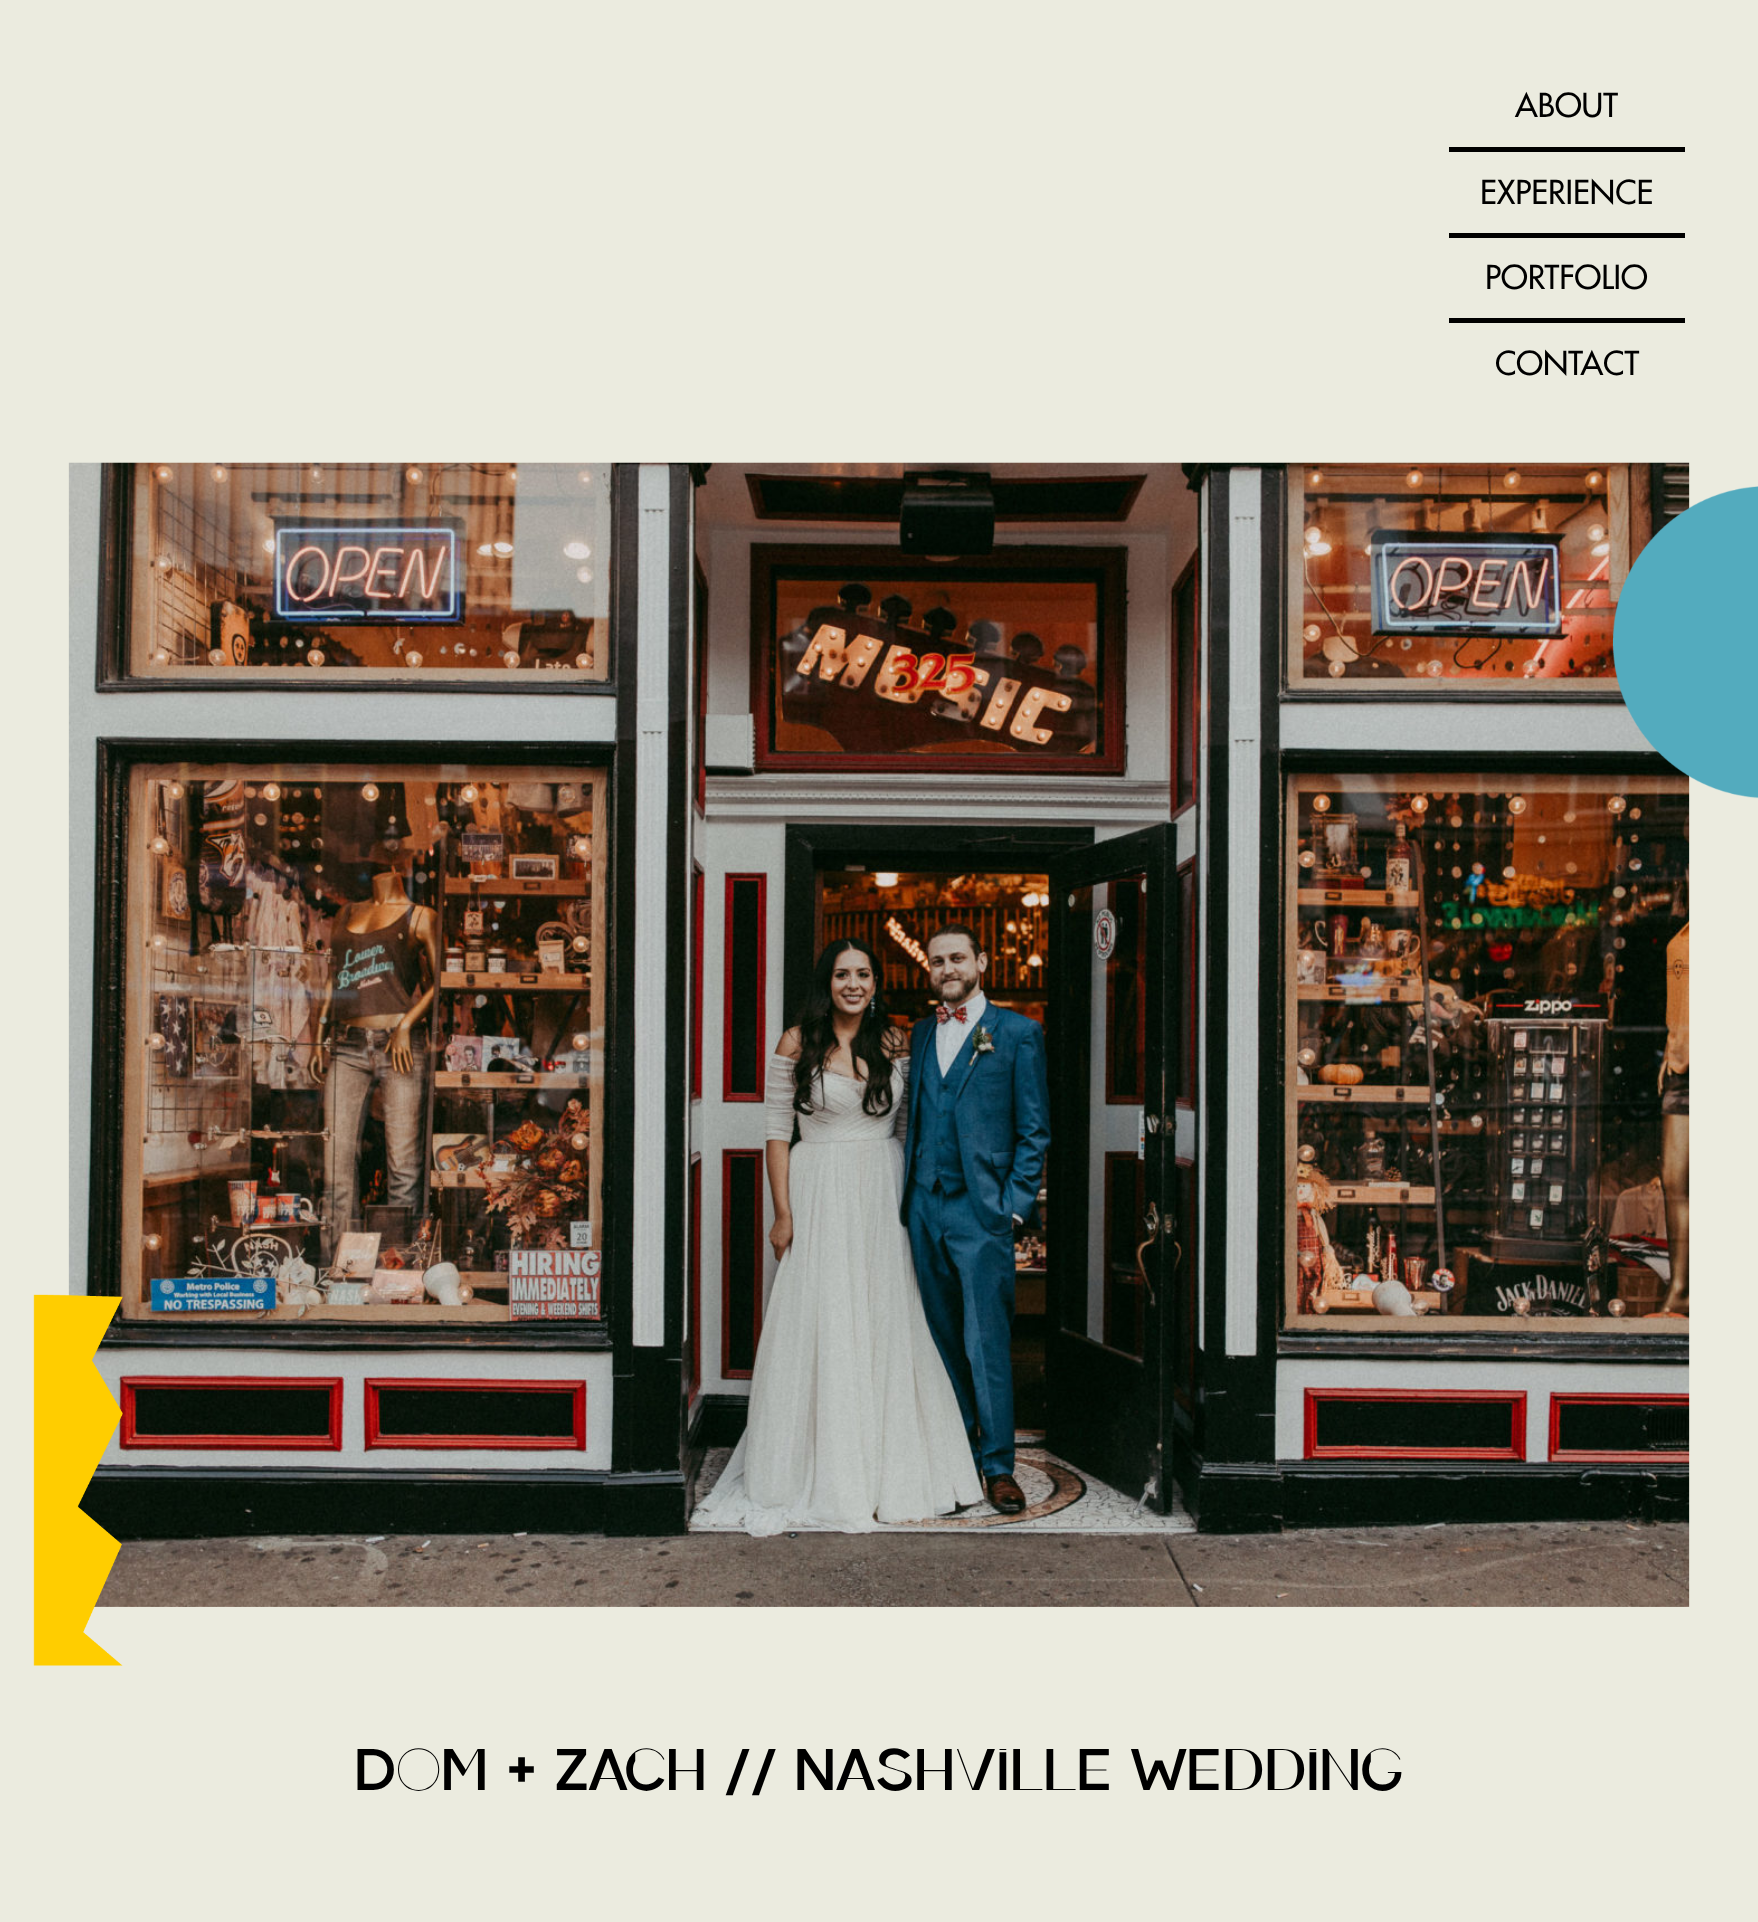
(async () => {
  const canvas = document.querySelector("canvas");
  canvas.width = 1758;
  canvas.height = 1922;
  const ctx = canvas.getContext("2d");
  ctx.miterLimit = 4;
  ctx.fontKerning = "normal";
  async function loadImage(src) {
    const img = new Image();
    img.src = src;
    await img.decode();
    return img;
  }

  ctx.fillStyle = "#ebebdf";
  ctx.fillRect(0, 0, 1758, 1922);
  for (const [x, y, w, h, color] of [
    [1449, 147, 236, 5, "#000000"],
    [1449, 233, 236, 5, "#000000"],
    [1449, 318, 236, 5, "#000000"],
  ]) {
    ctx.fillStyle = color;
    ctx.fillRect(x, y, w, h);
  }
  ctx.drawImage(await loadImage("img/1.png"), 68, 462, 1622, 1145);
  ctx.drawImage(await loadImage("img/2.png"), 1612, 486, 146, 313);
  ctx.drawImage(await loadImage("img/3.png"), 33, 1294, 90, 372);
  ctx.font = "500 32.25px Futura";
  for (const [text, x, y] of [
    ["ABOUT", 1515, 117],
    ["EXPERIENCE", 1480, 204],
    ["PORTFOLIO", 1485, 289],
    ["CONTACT", 1495, 375],
  ]) {
    ctx.fillText(text, x, y);
  }
  ctx.font = "58.6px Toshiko";
  ctx.fillText("Dom + Zach // Nashville Wedding", 354, 1790);
})();
